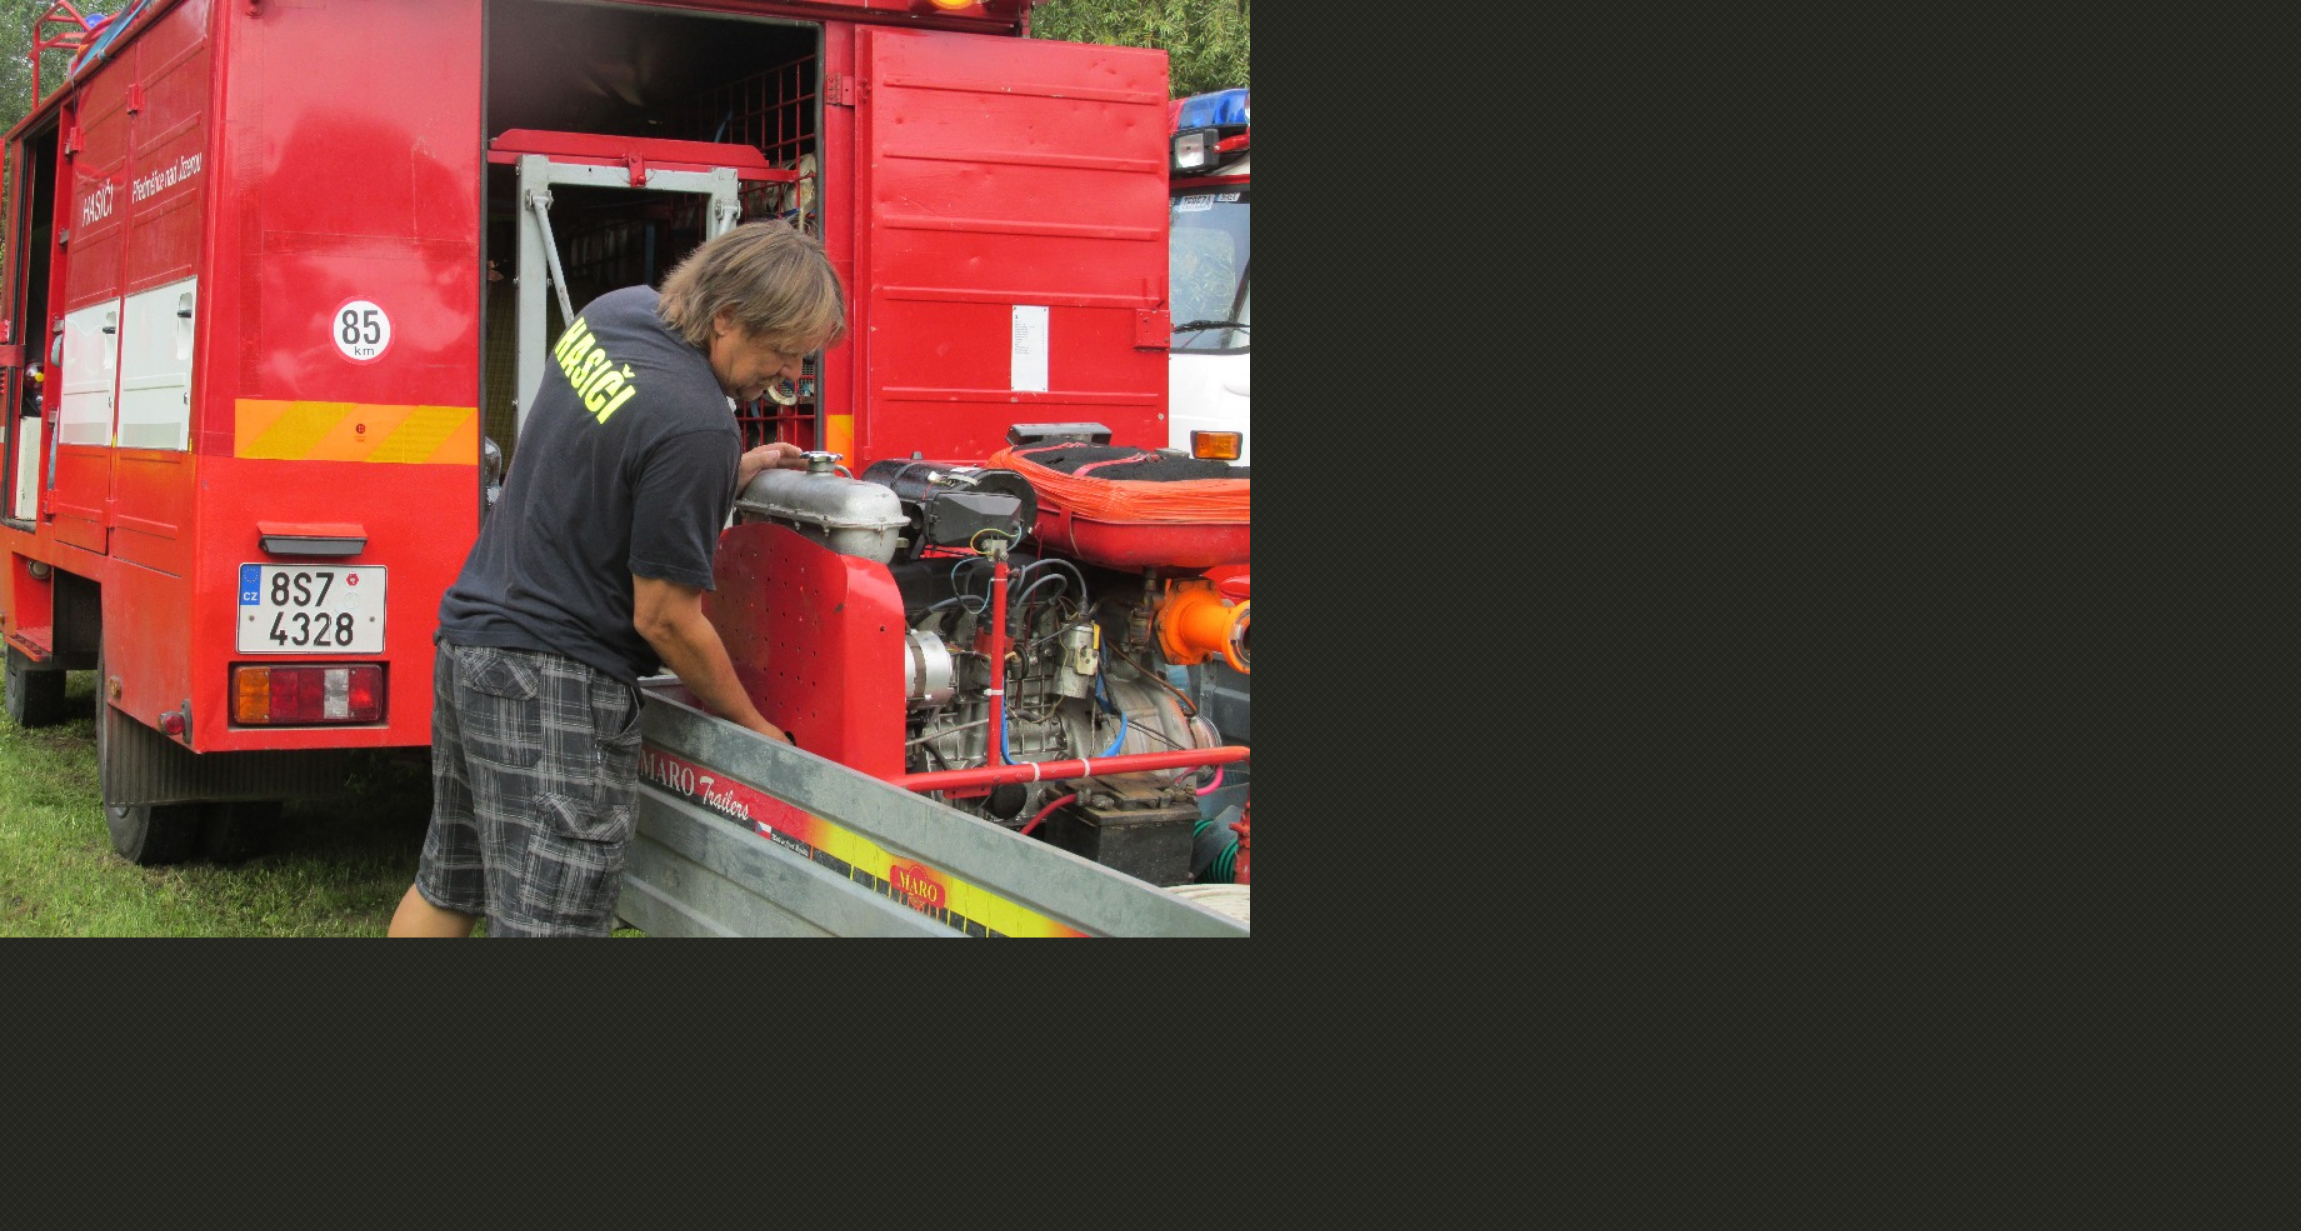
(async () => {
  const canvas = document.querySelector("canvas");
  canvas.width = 2301;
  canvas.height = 1231;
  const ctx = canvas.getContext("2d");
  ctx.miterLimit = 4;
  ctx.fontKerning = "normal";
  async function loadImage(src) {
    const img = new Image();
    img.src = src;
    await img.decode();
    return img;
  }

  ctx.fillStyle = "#25251f";
  ctx.fillRect(0, 0, 2301, 1231);
  ctx.drawImage(await loadImage("img/1.png"), 0, 0, 2301, 1231);
  ctx.drawImage(await loadImage("img/2.png"), 0, 0, 1250, 938);
})();
